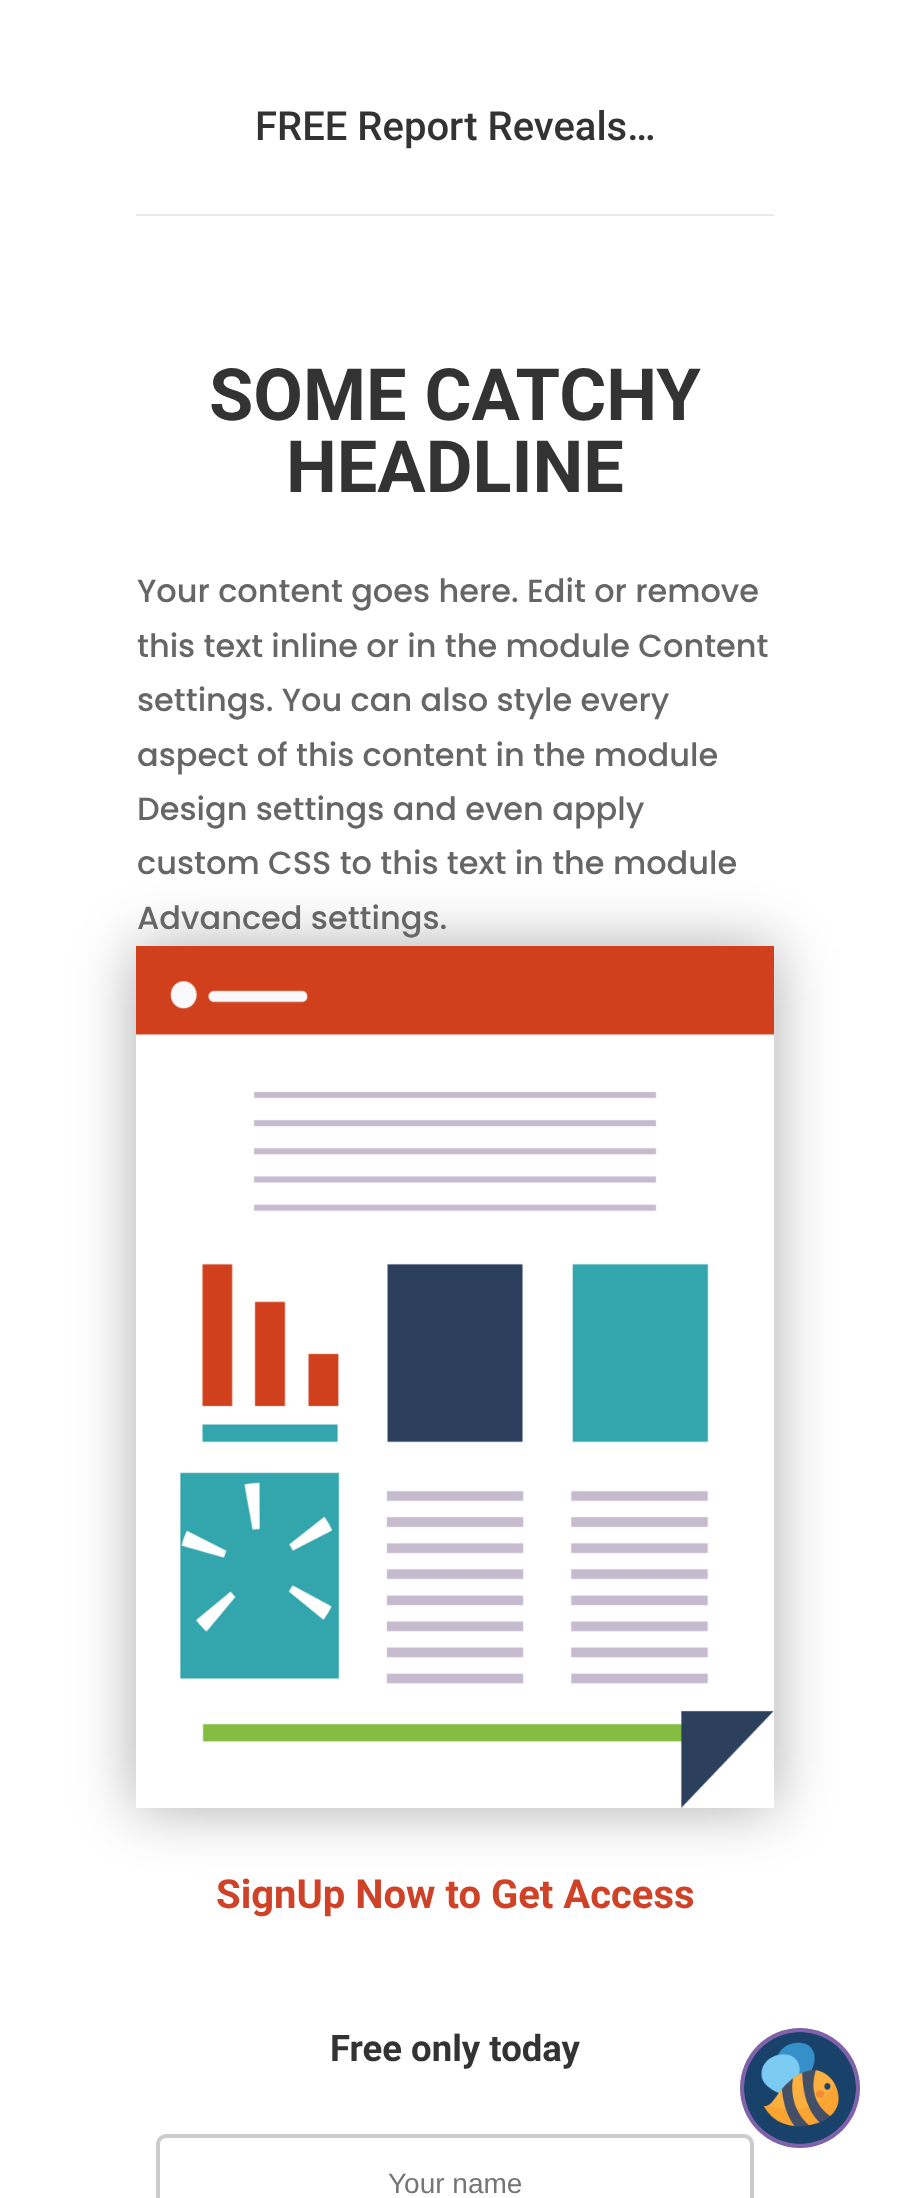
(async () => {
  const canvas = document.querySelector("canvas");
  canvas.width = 909;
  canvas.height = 2198;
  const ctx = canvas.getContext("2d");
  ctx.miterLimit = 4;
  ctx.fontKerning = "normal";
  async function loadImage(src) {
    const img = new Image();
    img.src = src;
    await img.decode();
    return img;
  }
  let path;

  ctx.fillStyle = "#ffffff";
  ctx.fillRect(0, 0, 909, 2198);
  ctx.fillStyle = "#eaeaea";
  ctx.fillRect(136, 214, 638, 2);
  ctx.save();
  path = new Path2D("M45 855H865V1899H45ZM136 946H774V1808H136Z");
  ctx.clip(path, "evenodd");
  ctx.fillStyle = "rgba(0, 0, 0, 0.32)";
  ctx.filter = "blur(30px)";
  ctx.beginPath();
  ctx.rect(136, 946, 638, 862);
  ctx.fill();
  ctx.filter = "none";
  ctx.restore();
  ctx.drawImage(await loadImage("img/1.png"), 136, 946, 638, 862);
  ctx.beginPath();
  ctx.roundRect(158, 2136, 594, 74, 8);
  ctx.strokeStyle = "#cccccc";
  ctx.lineWidth = 4;
  ctx.stroke();
  ctx.fillStyle = "#7f62aa";
  ctx.beginPath();
  ctx.arc(800, 2088, 60, 0, Math.PI * 2);
  ctx.fill();
  ctx.drawImage(await loadImage("img/2.png"), 744, 2032, 112, 112);
  ctx.font = "500 40px Roboto";
  ctx.fillStyle = "#333333";
  ctx.fillText("FREE Report Reveals…", 255, 140);
  ctx.font = "bold 72px Roboto";
  ctx.fillText("SOME CATCHY", 209, 420);
  ctx.fillText("HEADLINE", 286, 492);
  ctx.font = "500 32px Poppins";
  ctx.fillStyle = "#666666";
  for (const [text, x, y] of [
    ["Your content goes here. Edit or remove", 137, 602],
    ["this text inline or in the module Content", 137, 657],
    ["settings. You can also style every", 137, 711],
    ["aspect of this content in the module", 137, 766],
    ["Design settings and even apply", 137, 820],
    ["custom CSS to this text in the module", 137, 874],
    ["Advanced settings.", 137, 929],
  ]) {
    ctx.fillText(text, x, y);
  }
  ctx.font = "bold 40px Roboto";
  ctx.fillStyle = "#cf4227";
  ctx.fillText("SignUp Now to Get Access", 216, 1908);
  ctx.font = "bold 36.5px Roboto";
  ctx.fillStyle = "#333333";
  ctx.fillText("Free only today", 330, 2061);
  ctx.font = "28px Liberation Sans";
  ctx.fillStyle = "#757575";
  ctx.fillText("Your name", 388, 2193);
})();
